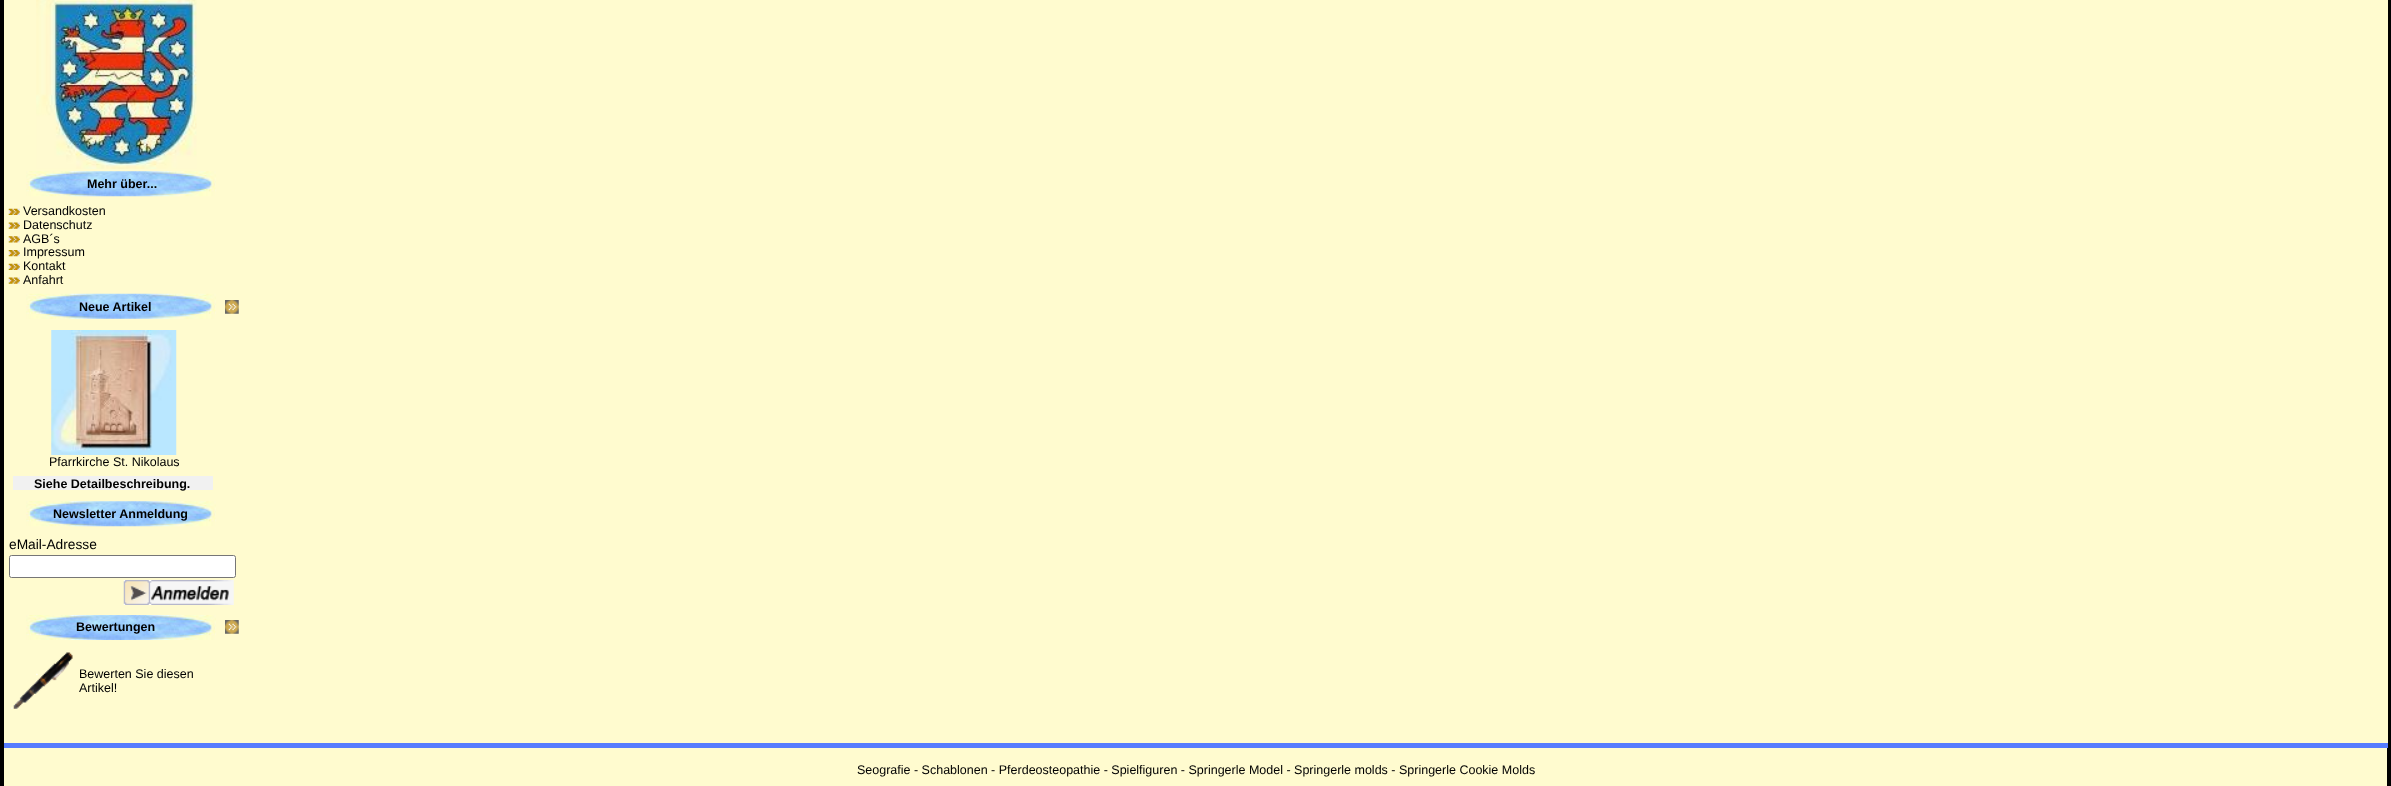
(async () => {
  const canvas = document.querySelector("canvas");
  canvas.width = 2391;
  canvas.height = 786;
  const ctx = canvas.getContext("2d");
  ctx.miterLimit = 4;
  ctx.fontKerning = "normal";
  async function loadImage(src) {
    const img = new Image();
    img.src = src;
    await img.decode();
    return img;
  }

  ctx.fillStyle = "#fffbcf";
  ctx.fillRect(0, 0, 2391, 786);
  ctx.strokeStyle = "#000000";
  ctx.lineWidth = 4;
  ctx.strokeRect(2, -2, 2387, 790);
  ctx.drawImage(await loadImage("img/1.png"), 36, 0, 161, 169);
  ctx.drawImage(await loadImage("img/2.png"), 26, 171, 190, 26);
  ctx.drawImage(await loadImage("img/3.png"), 8, 208, 12, 7);
  ctx.drawImage(await loadImage("img/4.png"), 8, 222, 12, 7);
  ctx.drawImage(await loadImage("img/5.png"), 8, 236, 12, 7);
  ctx.drawImage(await loadImage("img/6.png"), 8, 250, 12, 7);
  ctx.drawImage(await loadImage("img/3.png"), 8, 263, 12, 7);
  ctx.drawImage(await loadImage("img/4.png"), 8, 277, 12, 7);
  ctx.drawImage(await loadImage("img/7.png"), 26, 293, 190, 26);
  ctx.drawImage(await loadImage("img/8.png"), 225, 300, 14, 14);
  ctx.drawImage(await loadImage("img/9.png"), 51, 330, 126, 125);
  ctx.fillStyle = "#f1f1f1";
  ctx.fillRect(13, 476, 200, 14);
  ctx.drawImage(await loadImage("img/2.png"), 26, 501, 190, 26);
  ctx.fillStyle = "#ffffff";
  ctx.beginPath();
  ctx.roundRect(9.5, 555.5, 226, 22, 2);
  ctx.fill();
  ctx.strokeStyle = "#767676";
  ctx.lineWidth = 1;
  ctx.stroke();
  ctx.drawImage(await loadImage("img/10.png"), 123, 580, 111, 25);
  ctx.drawImage(await loadImage("img/11.png"), 26, 615, 190, 25);
  ctx.drawImage(await loadImage("img/8.png"), 225, 620, 14, 14);
  ctx.drawImage(await loadImage("img/12.png"), 11, 652, 62, 57);
  ctx.fillStyle = "#fffbcf";
  ctx.fillRect(2387, 0, 1, 743);
  ctx.fillStyle = "#567cfe";
  ctx.fillRect(4, 743, 2384, 5);
  ctx.font = "bold 12.5px Liberation Sans";
  ctx.fillStyle = "#000000";
  ctx.fillText("Mehr über...", 87, 188);
  ctx.font = "12.5px Liberation Sans";
  for (const [text, x, y] of [
    ["Versandkosten", 23, 215],
    ["Datenschutz", 23, 229],
    ["AGB´s", 23, 243],
    ["Impressum", 23, 256],
    ["Kontakt", 23, 270],
    ["Anfahrt", 23, 284],
  ]) {
    ctx.fillText(text, x, y);
  }
  ctx.font = "bold 12.5px Liberation Sans";
  ctx.fillText("Neue Artikel", 79, 311);
  ctx.font = "12.5px Liberation Sans";
  ctx.fillText("Pfarrkirche St. Nikolaus", 49, 466);
  ctx.font = "bold 12.5px Liberation Sans";
  ctx.fillText("Siehe Detailbeschreibung.", 34, 488);
  ctx.fillText("Newsletter Anmeldung", 53, 518);
  ctx.font = "13.75px Liberation Sans";
  ctx.fillText("eMail-Adresse", 9, 549);
  ctx.font = "bold 12.5px Liberation Sans";
  ctx.fillText("Bewertungen", 76, 631);
  ctx.font = "12.5px Liberation Sans";
  for (const [text, x, y] of [
    ["Bewerten Sie diesen", 79, 678],
    ["Artikel!", 79, 692],
    ["Seografie - Schablonen - Pferdeosteopathie - Spielfiguren - Springerle Model - Springerle molds - Springerle Cookie Molds", 857, 774],
  ]) {
    ctx.fillText(text, x, y);
  }
})();
